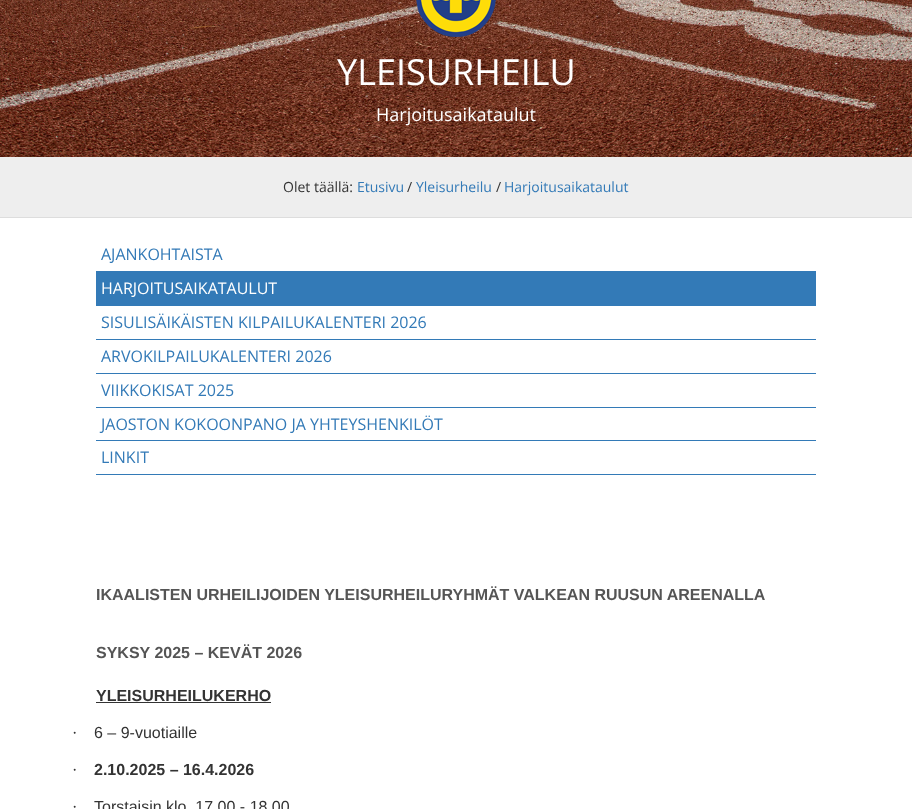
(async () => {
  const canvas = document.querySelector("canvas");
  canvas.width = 912;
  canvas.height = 809;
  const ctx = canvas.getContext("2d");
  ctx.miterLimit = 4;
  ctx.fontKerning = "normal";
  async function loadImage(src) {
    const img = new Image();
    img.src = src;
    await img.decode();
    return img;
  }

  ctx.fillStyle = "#ffffff";
  ctx.fillRect(0, 0, 912, 809);
  ctx.drawImage(await loadImage("img/1.png"), 0, 0, 912, 157);
  ctx.drawImage(await loadImage("img/2.png"), 416, 0, 80, 37);
  for (const [x, y, w, h, color] of [
    [0, 157, 912, 60, "#eeeeee"],
    [0, 217, 912, 1, "#dddddd"],
    [96, 271, 720, 35, "#337ab7"],
    [96, 339, 720, 1, "#337ab7"],
    [96, 373, 720, 1, "#337ab7"],
    [96, 407, 720, 1, "#337ab7"],
    [96, 440, 720, 1, "#337ab7"],
    [96, 474, 720, 1, "#337ab7"],
    [96, 702, 175, 1, "#333333"],
  ]) {
    ctx.fillStyle = color;
    ctx.fillRect(x, y, w, h);
  }
  ctx.font = "36px Open Sans";
  ctx.fillStyle = "#ffffff";
  ctx.fillText("YLEISURHEILU", 337, 85);
  ctx.font = "18px Open Sans";
  ctx.fillText("Harjoitusaikataulut", 376, 121);
  ctx.font = "14px Open Sans";
  ctx.fillStyle = "#333333";
  ctx.fillText("Olet täällä:", 283, 192);
  ctx.fillStyle = "#337ab7";
  ctx.fillText("Etusivu", 357, 192);
  ctx.fillStyle = "#333333";
  ctx.fillText("/", 407, 192);
  ctx.fillStyle = "#337ab7";
  ctx.fillText("Yleisurheilu", 416, 192);
  ctx.fillStyle = "#333333";
  ctx.fillText("/", 496, 192);
  ctx.fillStyle = "#337ab7";
  ctx.fillText("Harjoitusaikataulut", 504, 192);
  ctx.font = "16px Open Sans";
  ctx.fillText("AJANKOHTAISTA", 101, 260);
  ctx.fillStyle = "#ffffff";
  ctx.fillText("HARJOITUSAIKATAULUT", 101, 294);
  ctx.fillStyle = "#337ab7";
  for (const [text, x, y] of [
    ["SISULISÄIKÄISTEN KILPAILUKALENTERI 2026", 101, 328],
    ["ARVOKILPAILUKALENTERI 2026", 101, 362],
    ["VIIKKOKISAT 2025", 101, 396],
    ["JAOSTON KOKOONPANO JA YHTEYSHENKILÖT", 101, 430],
    ["LINKIT", 101, 463],
  ]) {
    ctx.fillText(text, x, y);
  }
  ctx.font = "bold 16px Liberation Sans";
  ctx.fillStyle = "#555555";
  ctx.fillText("IKAALISTEN URHEILIJOIDEN YLEISURHEILURYHMÄT VALKEAN RUUSUN AREENALLA", 96, 600);
  ctx.fillText("SYKSY 2025 – KEVÄT 2026", 96, 658);
  ctx.fillStyle = "#333333";
  ctx.fillText("YLEISURHEILUKERHO", 96, 701);
  ctx.font = "16px Liberation Serif";
  ctx.fillText("·", 72, 738);
  ctx.font = "16px Liberation Sans";
  ctx.fillText("6 – 9-vuotiaille", 94, 738);
  ctx.font = "16px Liberation Serif";
  ctx.fillText("·", 72, 775);
  ctx.font = "bold 16px Liberation Sans";
  ctx.fillText("2.10.2025 – 16.4.2026", 94, 775);
  ctx.font = "16px Liberation Serif";
  ctx.fillText("·", 72, 812);
  ctx.font = "16px Liberation Sans";
  ctx.fillText("Torstaisin klo. 17.00 - 18.00", 94, 812);
})();
